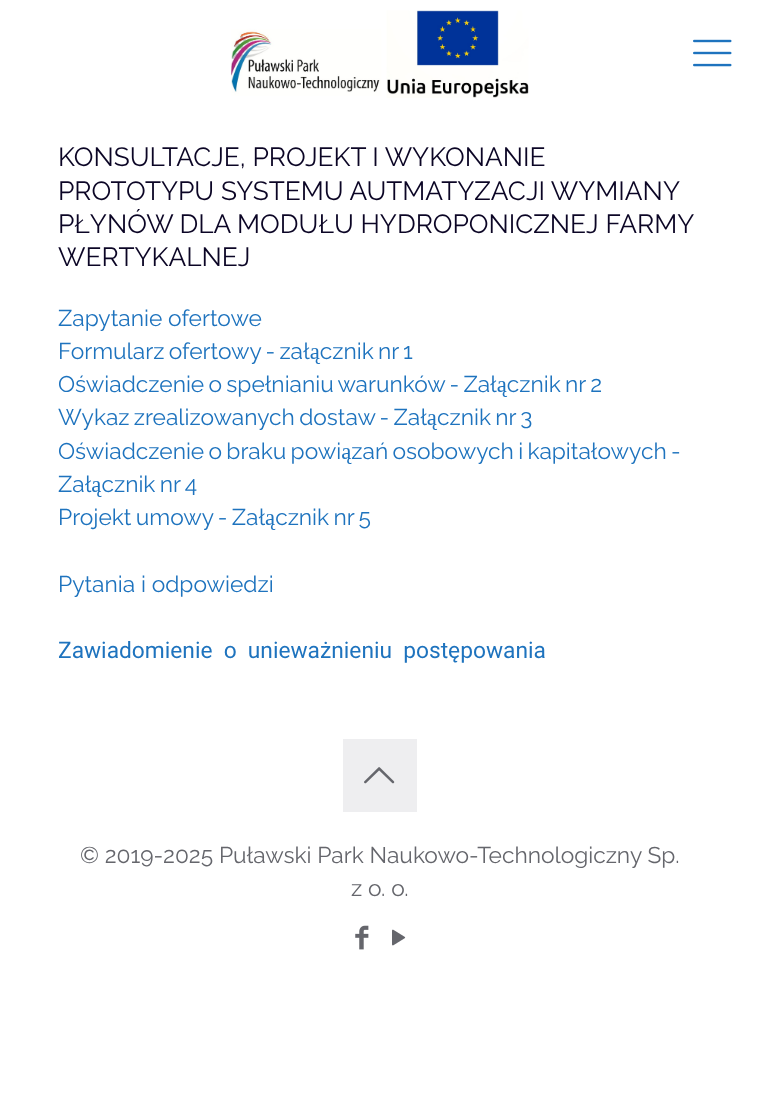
(async () => {
  const canvas = document.querySelector("canvas");
  canvas.width = 759;
  canvas.height = 1095;
  const ctx = canvas.getContext("2d");
  ctx.miterLimit = 4;
  ctx.fontKerning = "normal";
  async function loadImage(src) {
    const img = new Image();
    img.src = src;
    await img.decode();
    return img;
  }

  ctx.fillStyle = "#ffffff";
  ctx.fillRect(0, 0, 759, 1095);
  ctx.drawImage(await loadImage("img/1.png"), 231, 10, 298, 88);
  ctx.drawImage(await loadImage("img/2.png"), 693, 39, 39, 28);
  ctx.fillStyle = "#eeeef0";
  ctx.fillRect(343, 739, 74, 73);
  ctx.drawImage(await loadImage("img/3.png"), 364, 767, 31, 17);
  ctx.drawImage(await loadImage("img/4.png"), 355, 925, 14, 25);
  ctx.drawImage(await loadImage("img/5.png"), 392, 929, 14, 17);
  ctx.font = "26.25px Raleway";
  ctx.fillStyle = "#0b0525";
  for (const [text, x, y] of [
    ["KONSULTACJE, PROJEKT I WYKONANIE", 58, 166],
    ["PROTOTYPU SYSTEMU AUTMATYZACJI WYMIANY", 58, 200],
    ["PŁYNÓW DLA MODUŁU HYDROPONICZNEJ FARMY", 58, 233],
    ["WERTYKALNEJ", 58, 266],
  ]) {
    ctx.fillText(text, x, y);
  }
  ctx.font = "22.75px Raleway";
  ctx.fillStyle = "#1e73be";
  ctx.fillText("Zapytanie ofertowe", 58, 326);
  ctx.wordSpacing = "-1.5px";
  for (const [text, x, y] of [
    ["Formularz ofertowy - załącznik nr 1", 58, 359],
    ["Oświadczenie o spełnianiu warunków - Załącznik nr 2", 58, 392],
    ["Wykaz zrealizowanych dostaw - Załącznik nr 3", 58, 425],
    ["Oświadczenie o braku powiązań osobowych i kapitałowych -", 58, 459],
    ["Załącznik nr 4", 58, 492],
    ["Projekt umowy - Załącznik nr 5", 58, 525],
  ]) {
    ctx.fillText(text, x, y);
  }
  ctx.wordSpacing = "0px";
  ctx.fillText("Pytania i odpowiedzi", 58, 592);
  ctx.wordSpacing = "5.5px";
  ctx.font = "22.75px Roboto";
  ctx.fillText("Zawiadomienie o unieważnieniu postępowania", 58, 658);
  ctx.wordSpacing = "0px";
  ctx.font = "22.75px Raleway";
  ctx.fillStyle = "#65666c";
  ctx.fillText("© 2019-2025 Puławski Park Naukowo-Technologiczny Sp.", 80, 863);
  ctx.fillText("z o. o.", 351, 896);
})();
